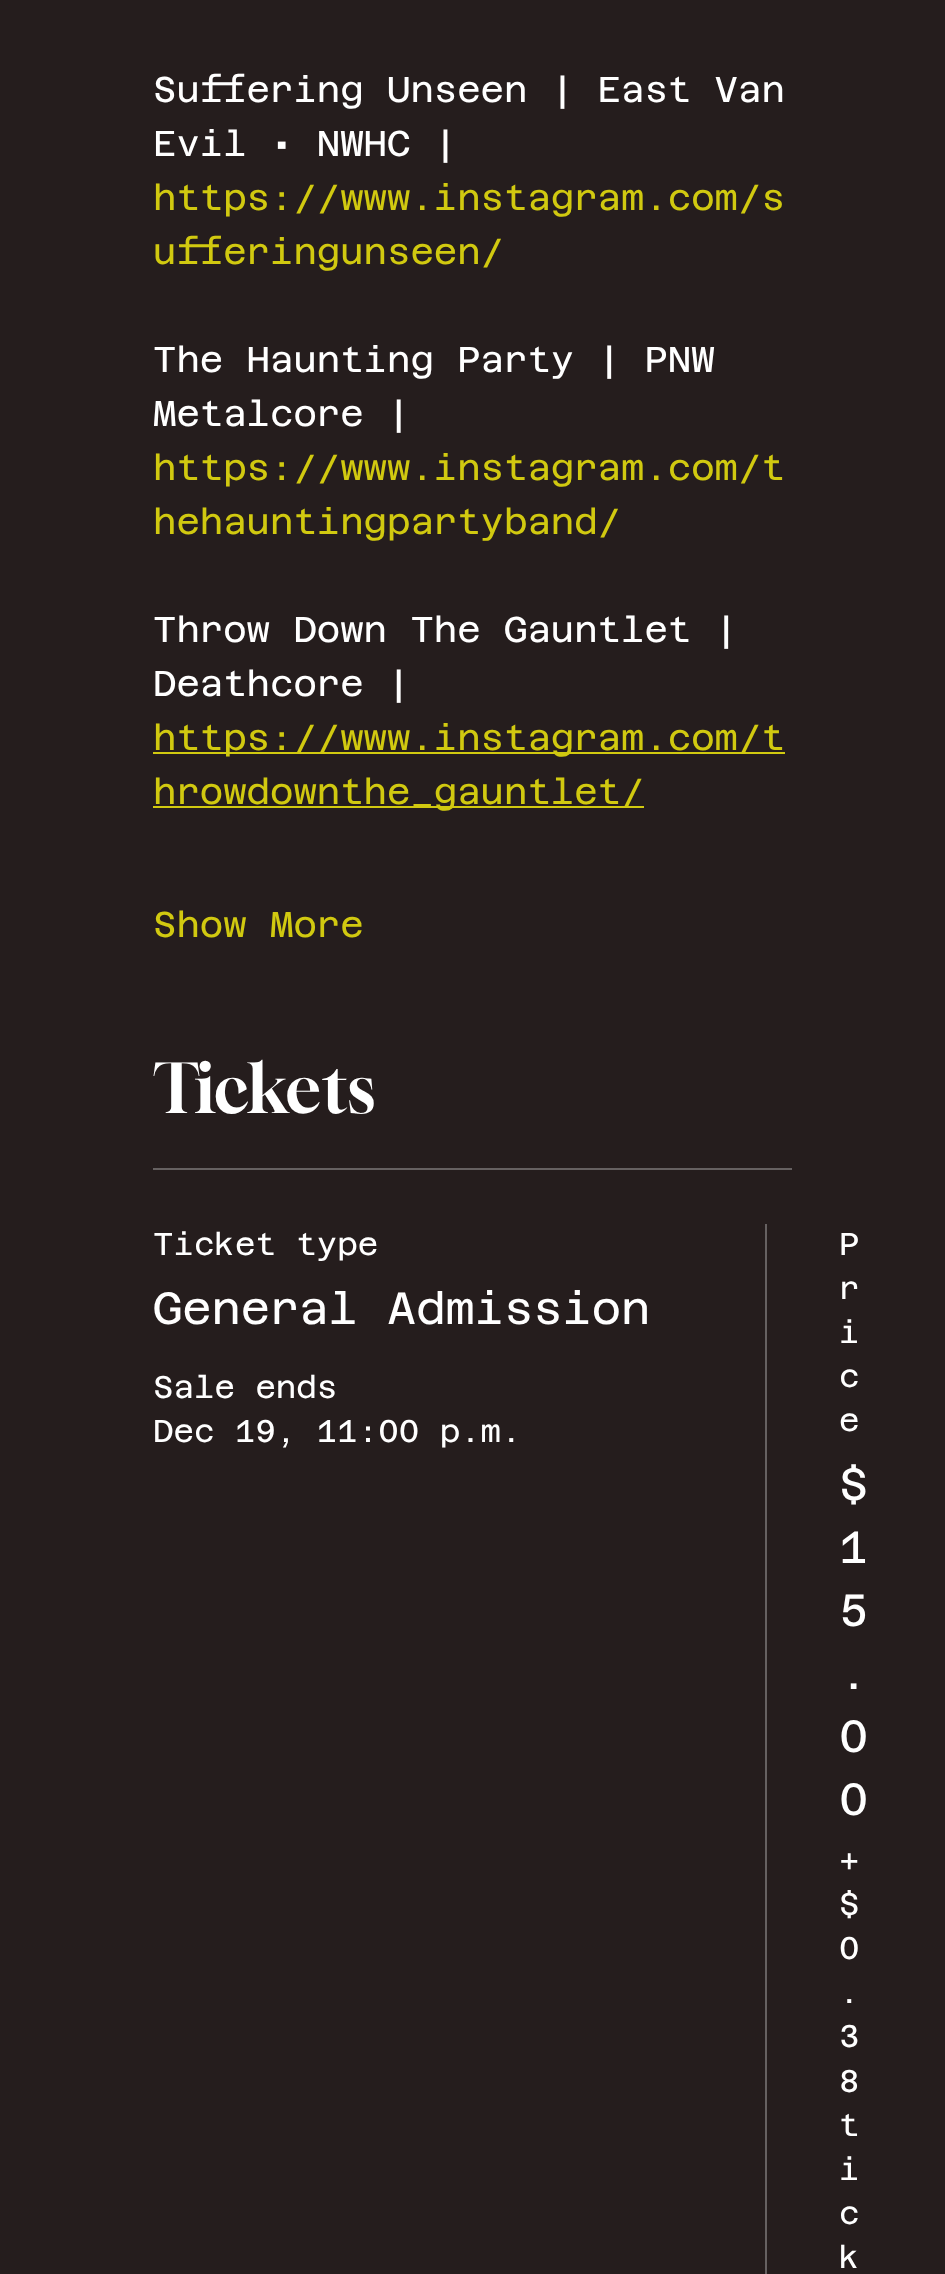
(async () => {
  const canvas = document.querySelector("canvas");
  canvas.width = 945;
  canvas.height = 2274;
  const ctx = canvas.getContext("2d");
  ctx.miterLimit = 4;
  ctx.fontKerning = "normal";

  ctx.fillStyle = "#251d1d";
  ctx.fillRect(0, 0, 945, 2274);
  for (const [x, y, w, h, color] of [
    [153, 752, 632, 2, "#d1c910"],
    [153, 806, 491, 2, "#d1c910"],
    [153, 1168, 639, 2, "#666161"],
    [765, 1224, 2, 1050, "#666161"],
  ]) {
    ctx.fillStyle = color;
    ctx.fillRect(x, y, w, h);
  }
  ctx.font = "36px Azeret Mono";
  ctx.fillStyle = "#ffffff";
  ctx.fillText("Suffering Unseen | East Van", 153, 102);
  ctx.fillText("Evil • NWHC |", 153, 156);
  ctx.fillStyle = "#d1c910";
  ctx.fillText("https://www.instagram.com/s", 153, 210);
  ctx.fillText("ufferingunseen/", 153, 264);
  ctx.fillStyle = "#ffffff";
  ctx.fillText("The Haunting Party | PNW", 153, 372);
  ctx.fillText("Metalcore |", 153, 426);
  ctx.fillStyle = "#d1c910";
  ctx.fillText("https://www.instagram.com/t", 153, 480);
  ctx.fillText("hehauntingpartyband/", 153, 534);
  ctx.fillStyle = "#ffffff";
  ctx.fillText("Throw Down The Gauntlet |", 153, 642);
  ctx.fillText("Deathcore |", 153, 696);
  ctx.fillStyle = "#d1c910";
  for (const [text, x, y] of [
    ["https://www.instagram.com/t", 153, 750],
    ["hrowdownthe_gauntlet/", 153, 804],
    ["Show More", 153, 937],
  ]) {
    ctx.fillText(text, x, y);
  }
  ctx.font = "67.5px Gloock";
  ctx.fillStyle = "#ffffff";
  ctx.fillText("Tickets", 153, 1113);
  ctx.font = "31.5px Azeret Mono";
  ctx.fillText("Ticket type", 153, 1255);
  ctx.font = "45px Azeret Mono";
  ctx.fillText("General Admission", 153, 1324);
  ctx.font = "31.5px Azeret Mono";
  for (const [text, x, y] of [
    ["Sale ends", 153, 1398],
    ["Dec 19, 11:00 p.m.", 153, 1442],
    ["P", 839, 1255],
    ["r", 839, 1299],
    ["i", 839, 1343],
    ["c", 839, 1387],
    ["e", 839, 1431],
  ]) {
    ctx.fillText(text, x, y);
  }
  ctx.font = "45px Azeret Mono";
  for (const [text, x, y] of [
    ["$", 839, 1500],
    ["1", 839, 1563],
    ["5", 839, 1626],
    [".", 839, 1689],
    ["0", 839, 1752],
    ["0", 839, 1815],
  ]) {
    ctx.fillText(text, x, y);
  }
  ctx.font = "31.5px Azeret Mono";
  for (const [text, x, y] of [
    ["+", 839, 1871],
    ["$", 839, 1915],
    ["0", 839, 1959],
    [".", 839, 2003],
    ["3", 839, 2047],
    ["8", 839, 2092],
    ["t", 839, 2136],
    ["i", 839, 2180],
    ["c", 839, 2224],
    ["k", 839, 2268],
  ]) {
    ctx.fillText(text, x, y);
  }
})();
